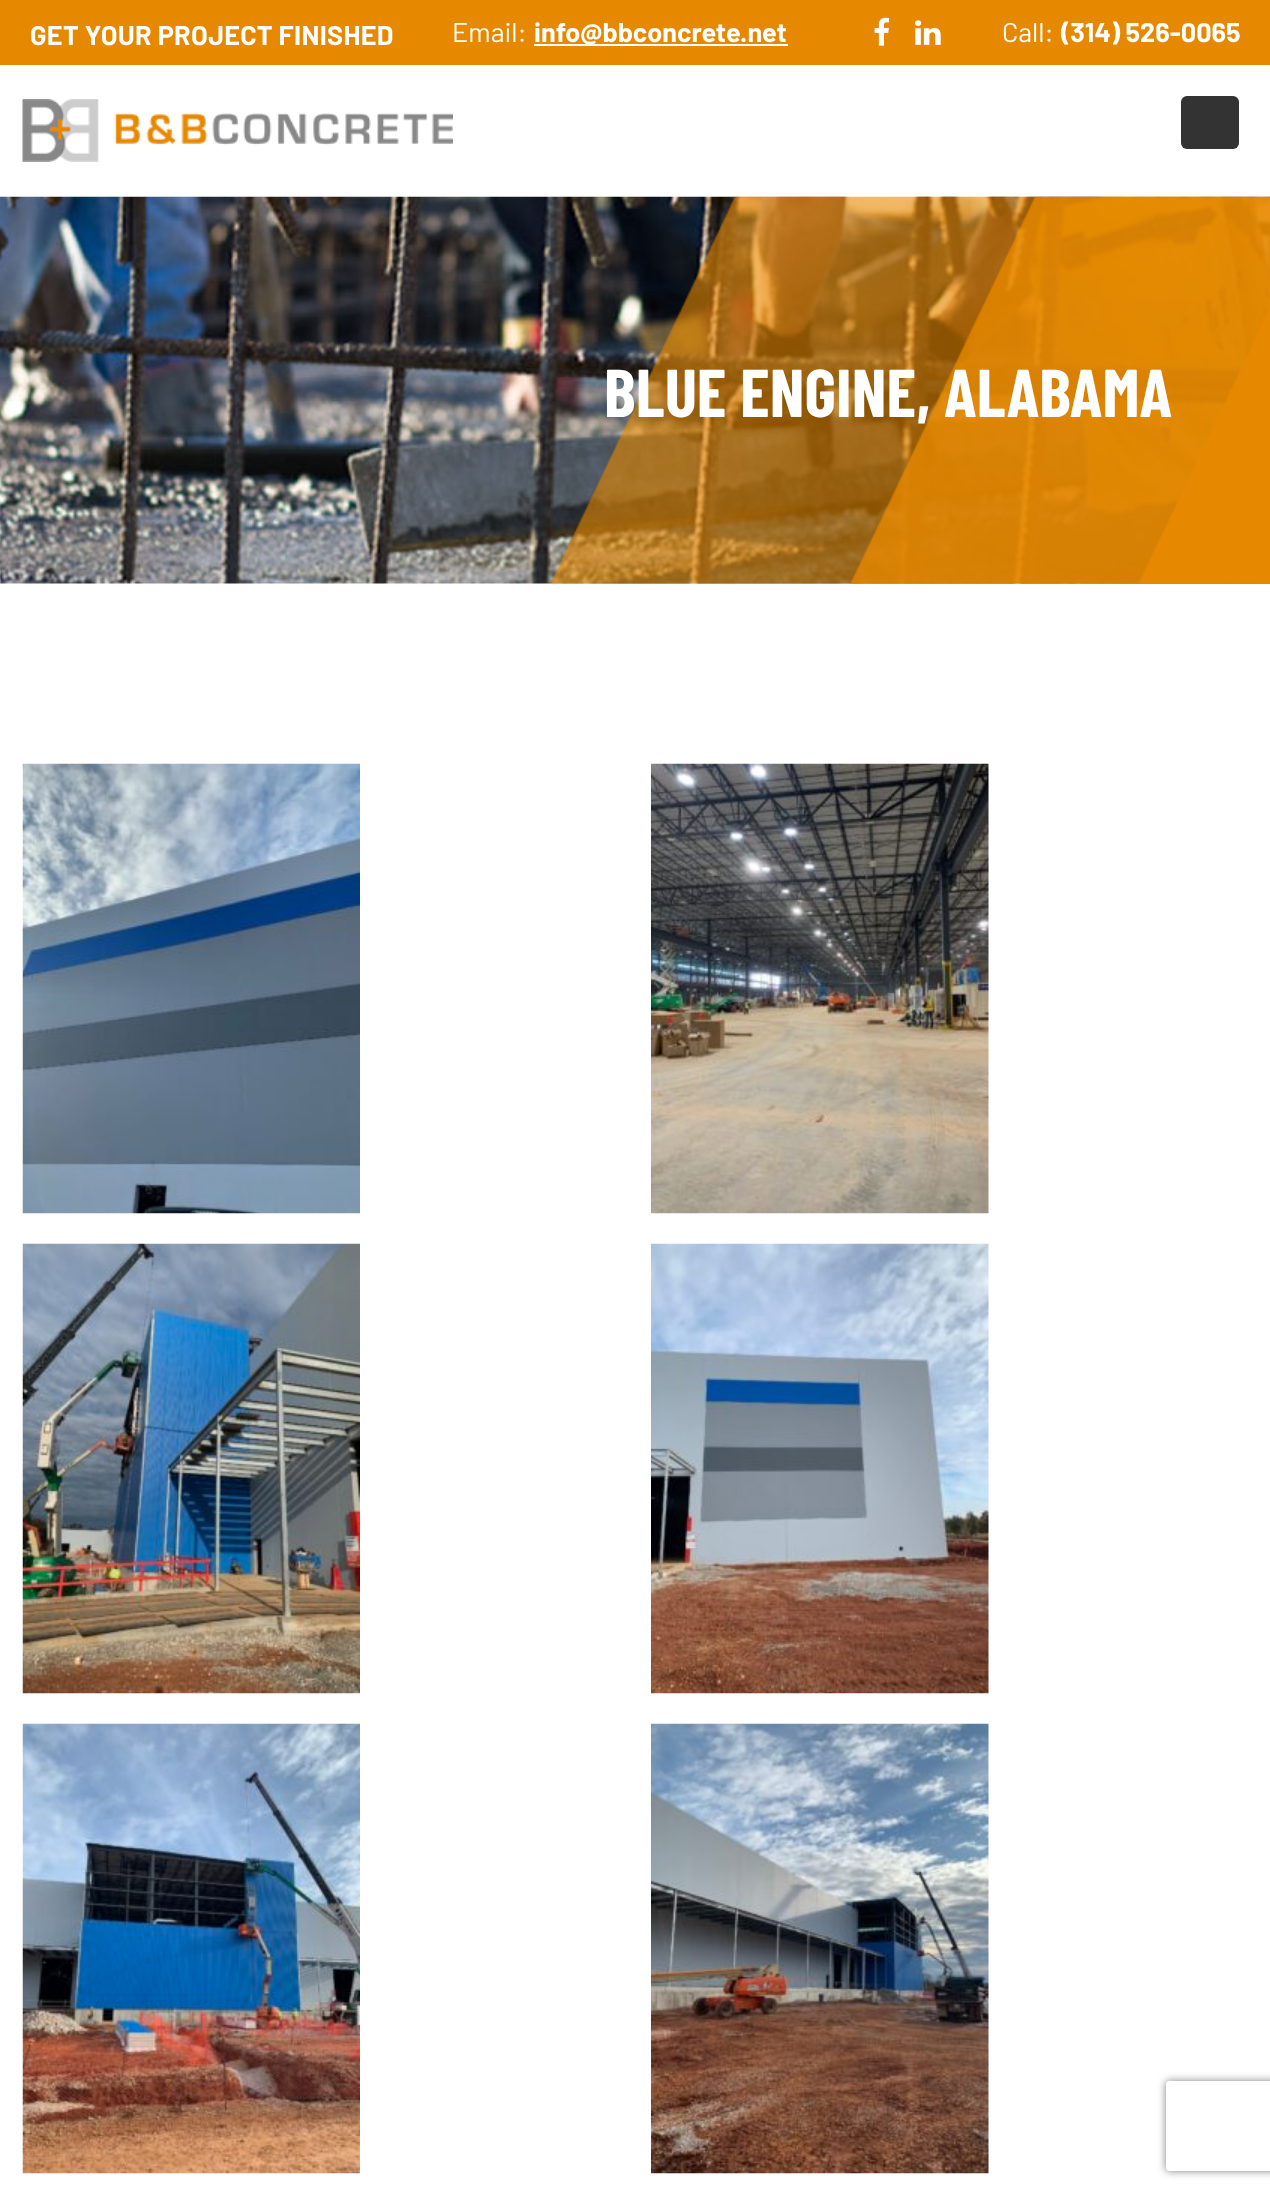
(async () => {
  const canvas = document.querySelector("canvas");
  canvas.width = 1270;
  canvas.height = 2191;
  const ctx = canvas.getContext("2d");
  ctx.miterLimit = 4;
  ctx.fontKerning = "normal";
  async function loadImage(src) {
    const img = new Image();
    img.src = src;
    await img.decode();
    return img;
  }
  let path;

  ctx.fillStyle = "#ffffff";
  ctx.fillRect(0, 0, 1270, 2191);
  ctx.fillStyle = "#e78900";
  ctx.fillRect(0, 0, 1270, 65);
  ctx.fillStyle = "#ffffff";
  ctx.fillRect(534, 44, 254, 2);
  ctx.drawImage(await loadImage("img/1.png"), 874, 17, 16, 29);
  ctx.drawImage(await loadImage("img/2.png"), 915, 20, 26, 25);
  ctx.drawImage(await loadImage("img/3.png"), 22, 99, 431, 63);
  ctx.fillStyle = "#333333";
  ctx.beginPath();
  ctx.roundRect(1181, 96, 58, 53, 6);
  ctx.fill();
  ctx.drawImage(await loadImage("img/4.png"), 0, 196, 1270, 388);
  ctx.drawImage(await loadImage("img/5.png"), 550, 196, 720, 388);
  ctx.drawImage(await loadImage("img/6.png"), 22, 763, 338, 451);
  ctx.drawImage(await loadImage("img/7.png"), 651, 763, 338, 451);
  ctx.drawImage(await loadImage("img/8.png"), 22, 1243, 338, 451);
  ctx.drawImage(await loadImage("img/9.png"), 651, 1243, 338, 451);
  ctx.drawImage(await loadImage("img/10.png"), 22, 1723, 338, 451);
  ctx.drawImage(await loadImage("img/11.png"), 651, 1723, 338, 451);
  ctx.save();
  path = new Path2D("M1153 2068H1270V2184H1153ZM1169 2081H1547C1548.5 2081 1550 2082.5 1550 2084V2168C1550 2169.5 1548.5 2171 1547 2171H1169C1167.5 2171 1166 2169.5 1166 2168V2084C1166 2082.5 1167.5 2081 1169 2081Z");
  ctx.clip(path, "evenodd");
  ctx.fillStyle = "#808080";
  ctx.filter = "blur(4px)";
  ctx.beginPath();
  ctx.roundRect(1166, 2081, 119, 90, 3);
  ctx.fill();
  ctx.filter = "none";
  ctx.restore();
  ctx.letterSpacing = "0.3px";
  ctx.font = "bold 27px Barlow";
  ctx.fillStyle = "#ffffff";
  ctx.fillText("GET YOUR PROJECT FINISHED", 30, 45);
  ctx.letterSpacing = "0px";
  ctx.font = "27px Barlow";
  ctx.fillText("Email:", 452, 42);
  ctx.font = "bold 27px Barlow";
  ctx.fillText("info@bbconcrete.net", 534, 42);
  ctx.font = "27px Barlow";
  ctx.fillText("Call:", 1002, 42);
  ctx.font = "bold 27px Barlow";
  ctx.fillText("(314) 526-0065", 1061, 42);
  ctx.letterSpacing = "0.1px";
  ctx.font = "bold 67.5px Barlow Condensed";
  ctx.fillText("BLUE ENGINE, ALABAMA", 604, 417);
})();
